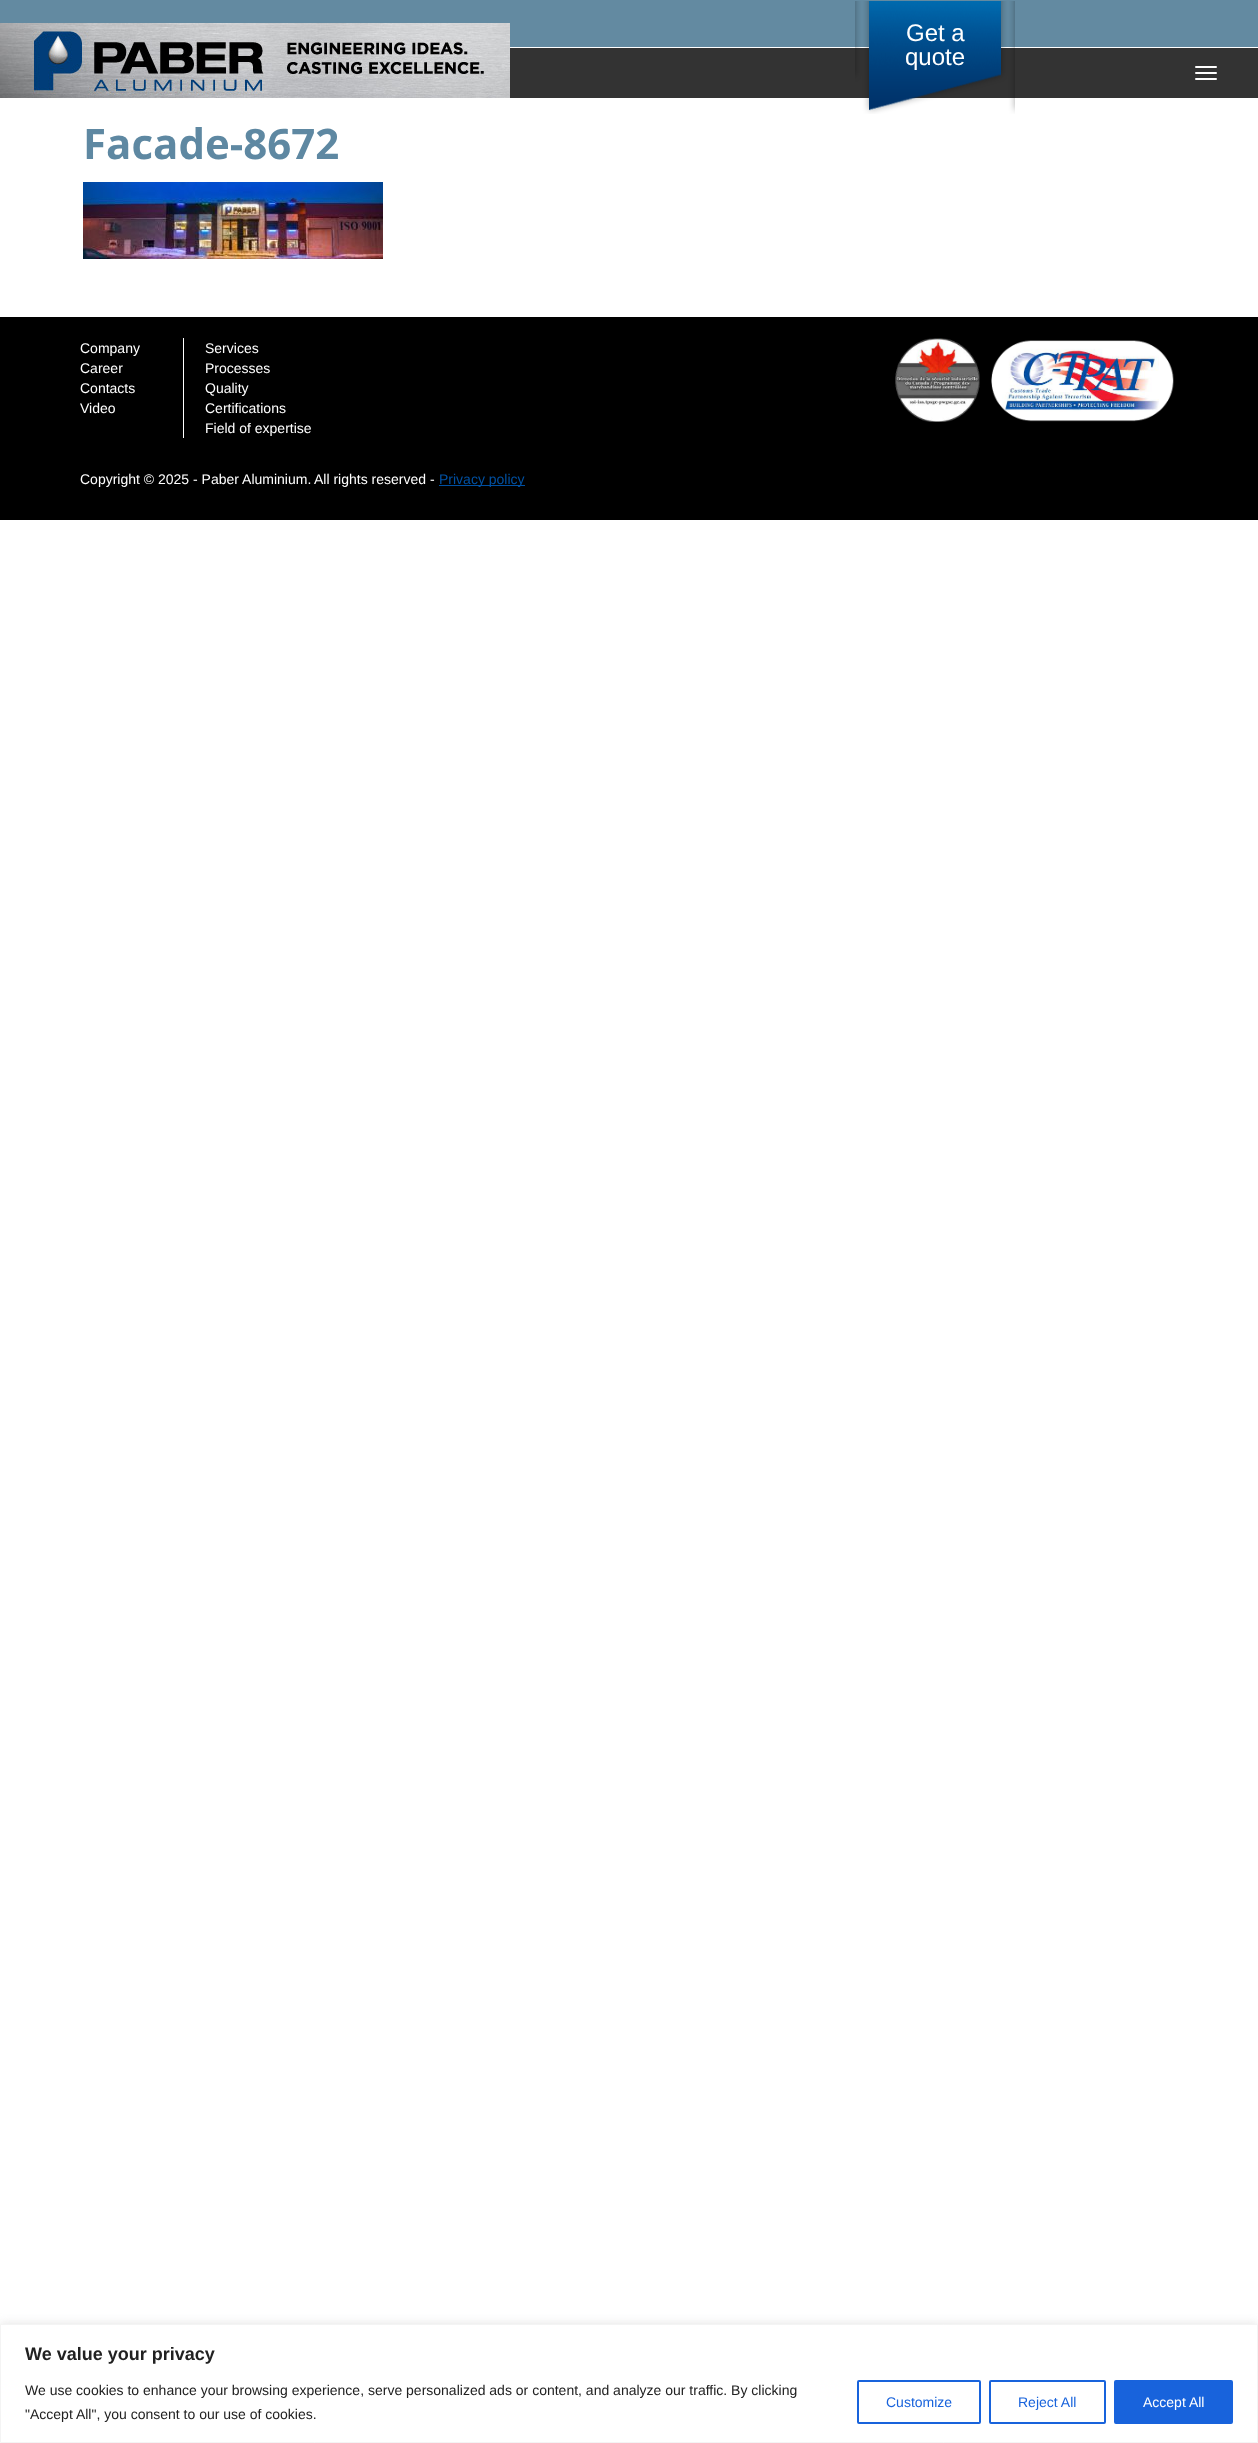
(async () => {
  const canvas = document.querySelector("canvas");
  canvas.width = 1258;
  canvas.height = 2443;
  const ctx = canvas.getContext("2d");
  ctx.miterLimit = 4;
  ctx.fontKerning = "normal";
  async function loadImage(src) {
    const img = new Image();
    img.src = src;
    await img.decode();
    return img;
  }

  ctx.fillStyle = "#ffffff";
  ctx.fillRect(0, 0, 1258, 2443);
  ctx.fillStyle = "#333333";
  ctx.fillRect(510, 48, 748, 50);
  ctx.fillStyle = "#638aa1";
  ctx.fillRect(0, 0, 1258, 47);
  ctx.drawImage(await loadImage("img/1.png"), 0, 23, 510, 75);
  ctx.fillStyle = "#ffffff";
  ctx.beginPath();
  ctx.roundRect(1195, 66, 22, 2, 1);
  ctx.fill();
  ctx.beginPath();
  ctx.roundRect(1195, 72, 22, 2, 1);
  ctx.fill();
  ctx.beginPath();
  ctx.roundRect(1195, 78, 22, 2, 1);
  ctx.fill();
  ctx.drawImage(await loadImage("img/2.png"), 855, 1, 160, 113);
  ctx.drawImage(await loadImage("img/3.png"), 83, 182, 300, 77);
  ctx.fillStyle = "#000000";
  ctx.fillRect(0, 317, 1258, 203);
  ctx.fillStyle = "#ffffff";
  ctx.fillRect(183, 338, 1, 100);
  ctx.drawImage(await loadImage("img/4.png"), 895, 338, 85, 84);
  ctx.drawImage(await loadImage("img/5.png"), 991, 340, 183, 82);
  ctx.fillStyle = "#0050a2";
  ctx.fillRect(439, 485, 86, 1);
  ctx.fillStyle = "rgba(172, 171, 171, 0.3)";
  ctx.filter = "blur(5px)";
  ctx.beginPath();
  ctx.rect(0, 2323, 1258, 119);
  ctx.fill();
  ctx.filter = "none";
  ctx.fillStyle = "#ffffff";
  ctx.beginPath();
  ctx.rect(0.5, 2324.5, 1257, 118);
  ctx.fill();
  ctx.strokeStyle = "#f4f4f4";
  ctx.stroke();
  ctx.beginPath();
  ctx.roundRect(858, 2381, 122, 42, 1);
  ctx.strokeStyle = "#1863dc";
  ctx.lineWidth = 2;
  ctx.stroke();
  ctx.beginPath();
  ctx.roundRect(990, 2381, 115, 42, 1);
  ctx.stroke();
  ctx.fillStyle = "#1863dc";
  ctx.beginPath();
  ctx.roundRect(1115, 2381, 117, 42, 1);
  ctx.fill();
  ctx.stroke();
  ctx.font = "24px Liberation Sans";
  ctx.fillStyle = "#ffffff";
  ctx.fillText("Get a", 906, 41);
  ctx.fillText("quote", 905, 65);
  ctx.font = "bold 42px Open Sans";
  ctx.fillStyle = "#5e88a2";
  ctx.fillText("Facade-8672", 83, 159);
  ctx.font = "14px Liberation Sans";
  ctx.fillStyle = "#ffffff";
  for (const [text, x, y] of [
    ["Company", 80, 353],
    ["Career", 80, 373],
    ["Contacts", 80, 393],
    ["Video", 80, 413],
    ["Services", 205, 353],
    ["Processes", 205, 373],
    ["Quality", 205, 393],
    ["Certifications", 205, 413],
    ["Field of expertise", 205, 433],
    ["Copyright © 2025 - Paber Aluminium.", 80, 484],
    ["All rights reserved -", 314, 484],
  ]) {
    ctx.fillText(text, x, y);
  }
  ctx.fillStyle = "#0050a2";
  ctx.fillText("Privacy policy", 439, 484);
  ctx.font = "bold 18px Liberation Sans";
  ctx.fillStyle = "#212121";
  ctx.fillText("We value your privacy", 25, 2360);
  ctx.font = "14px Liberation Sans";
  ctx.fillText("We use cookies to enhance your browsing experience, serve personalized ads or content, and analyze our traffic. By clicking", 25, 2395);
  ctx.fillText("\"Accept All\", you consent to our use of cookies.", 25, 2419);
  ctx.fillStyle = "#1863dc";
  ctx.fillText("Customize", 886, 2407);
  ctx.fillText("Reject All", 1018, 2407);
  ctx.fillStyle = "#ffffff";
  ctx.fillText("Accept All", 1143, 2407);
})();
